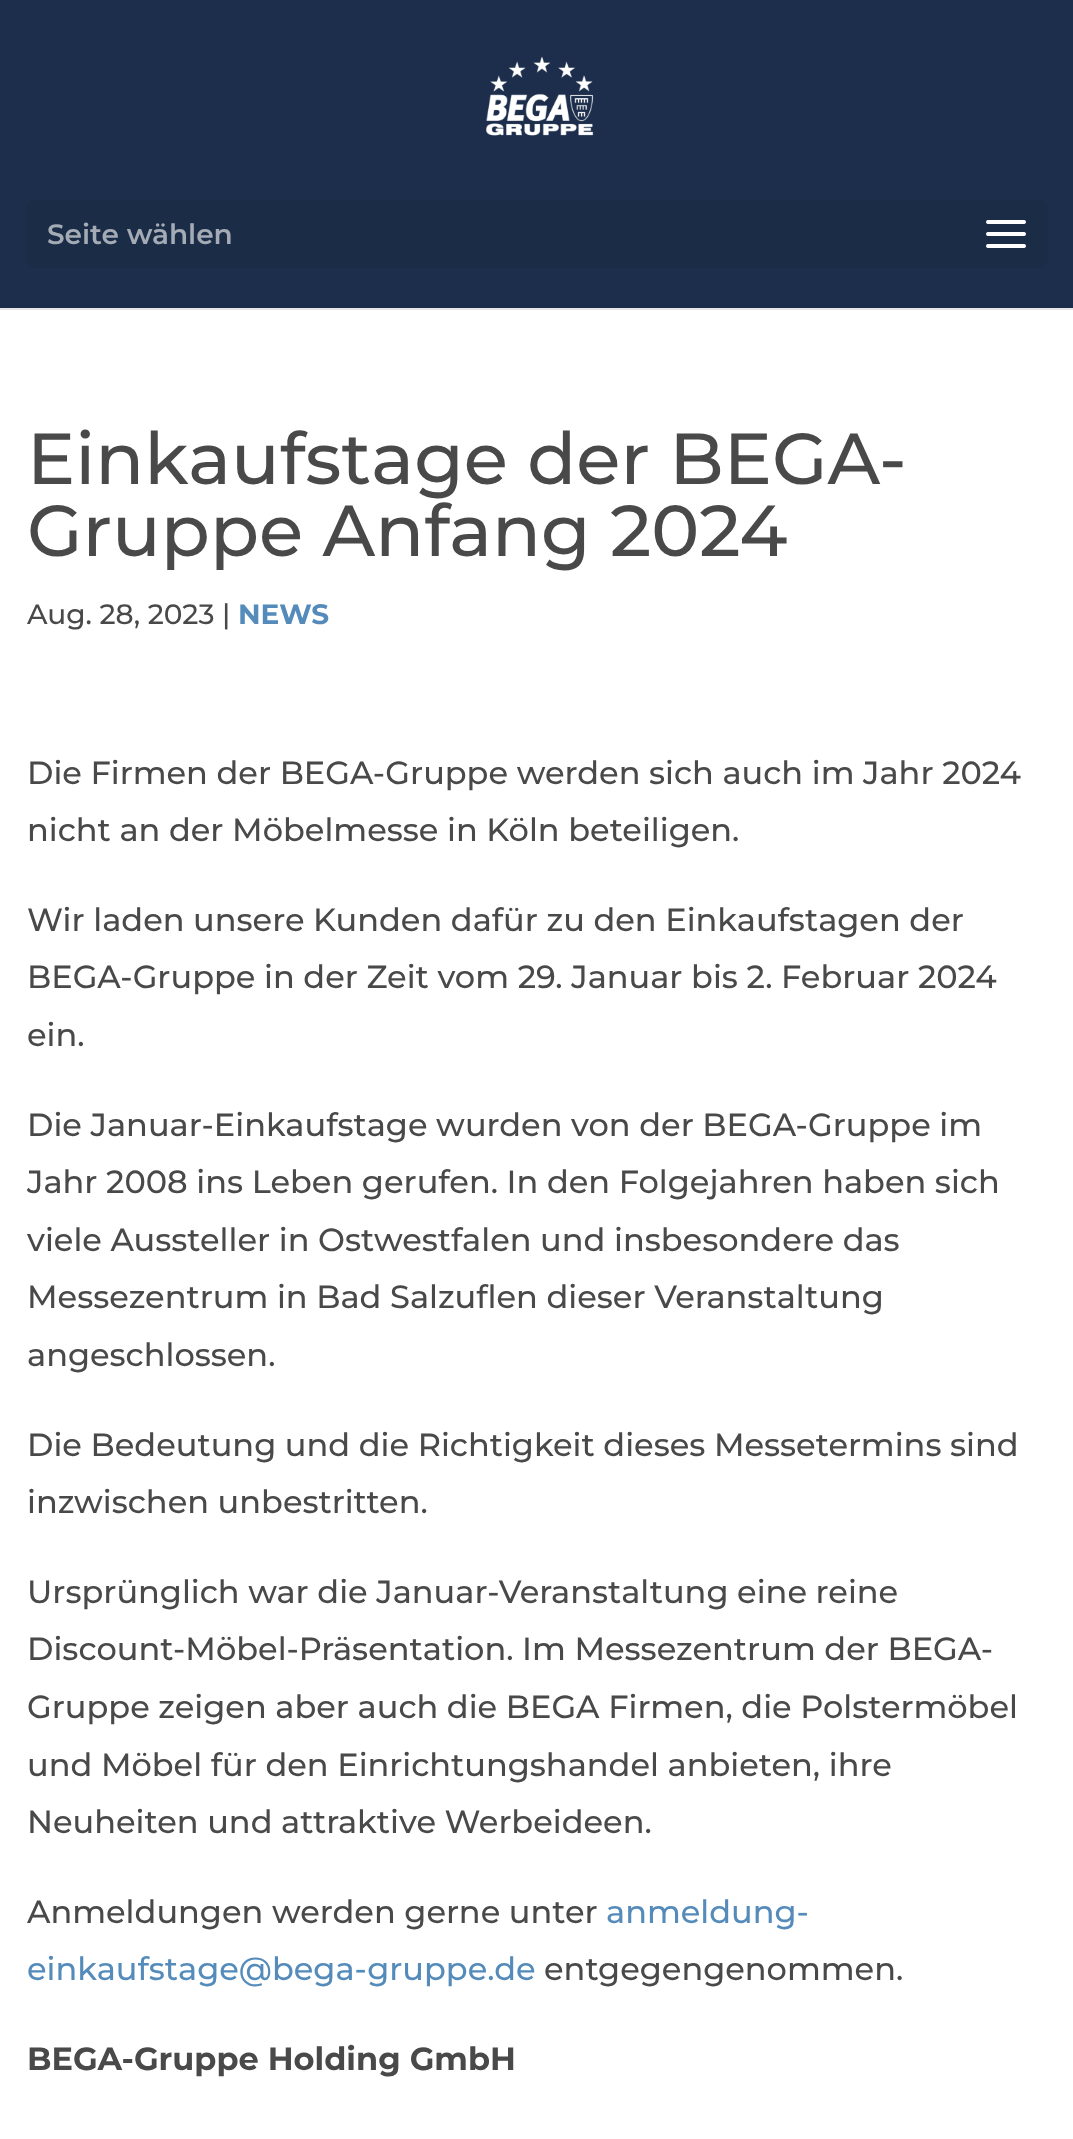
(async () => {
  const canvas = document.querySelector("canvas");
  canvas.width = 1073;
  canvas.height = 2139;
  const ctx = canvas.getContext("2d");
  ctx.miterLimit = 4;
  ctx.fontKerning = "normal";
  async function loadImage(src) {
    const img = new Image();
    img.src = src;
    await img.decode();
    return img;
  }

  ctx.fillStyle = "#ffffff";
  ctx.fillRect(0, 0, 1073, 2139);
  ctx.fillStyle = "#e6e6e6";
  ctx.fillRect(0, 308, 1073, 2);
  ctx.fillStyle = "#1c2e4b";
  ctx.fillRect(0, 0, 1073, 308);
  ctx.drawImage(await loadImage("img/1.png"), 486, 56, 108, 80);
  ctx.fillStyle = "#1b2c47";
  ctx.beginPath();
  ctx.roundRect(26, 200, 1022, 68, 10);
  ctx.fill();
  ctx.drawImage(await loadImage("img/2.png"), 986, 220, 40, 28);
  ctx.font = "100 28px 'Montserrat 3'";
  ctx.fillStyle = "#a4abb5";
  ctx.fillText("Seite wählen", 47, 244);
  ctx.font = "100 72px Montserrat";
  ctx.fillStyle = "#494949";
  ctx.fillText("Einkaufstage der BEGA-", 27, 484);
  ctx.fillText("Gruppe Anfang 2024", 27, 556);
  ctx.font = "100 28px Montserrat";
  ctx.fillText("Aug. 28, 2023 |", 27, 624);
  ctx.font = "100 28px 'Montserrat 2'";
  ctx.fillStyle = "#558bba";
  ctx.fillText("NEWS", 238, 624);
  ctx.font = "100 32px Montserrat";
  ctx.fillStyle = "#494949";
  for (const [text, x, y] of [
    ["Die Firmen der BEGA-Gruppe werden sich auch im Jahr 2024", 27, 784],
    ["nicht an der Möbelmesse in Köln beteiligen.", 27, 841],
    ["Wir laden unsere Kunden dafür zu den Einkaufstagen der", 27, 931],
    ["BEGA-Gruppe in der Zeit vom 29. Januar bis 2. Februar 2024", 27, 988],
    ["ein.", 27, 1046],
    ["Die Januar-Einkaufstage wurden von der BEGA-Gruppe im", 27, 1136],
    ["Jahr 2008 ins Leben gerufen. In den Folgejahren haben sich", 27, 1193],
    ["viele Aussteller in Ostwestfalen und insbesondere das", 27, 1251],
    ["Messezentrum in Bad Salzuflen dieser Veranstaltung", 27, 1308],
    ["angeschlossen.", 27, 1366],
    ["Die Bedeutung und die Richtigkeit dieses Messetermins sind", 27, 1456],
    ["inzwischen unbestritten.", 27, 1513],
    ["Ursprünglich war die Januar-Veranstaltung eine reine", 27, 1603],
    ["Discount-Möbel-Präsentation. Im Messezentrum der BEGA-", 27, 1660],
    ["Gruppe zeigen aber auch die BEGA Firmen, die Polstermöbel", 27, 1718],
    ["und Möbel für den Einrichtungshandel anbieten, ihre", 27, 1776],
    ["Neuheiten und attraktive Werbeideen.", 27, 1833],
    ["Anmeldungen werden gerne unter", 27, 1923],
  ]) {
    ctx.fillText(text, x, y);
  }
  ctx.fillStyle = "#558bba";
  ctx.fillText("anmeldung-", 606, 1923);
  ctx.fillText("einkaufstage@bega-gruppe.de", 27, 1980);
  ctx.fillStyle = "#494949";
  ctx.fillText("entgegengenommen.", 544, 1980);
  ctx.font = "100 32px 'Montserrat 2'";
  ctx.fillText("BEGA-Gruppe Holding GmbH", 27, 2070);
})();
